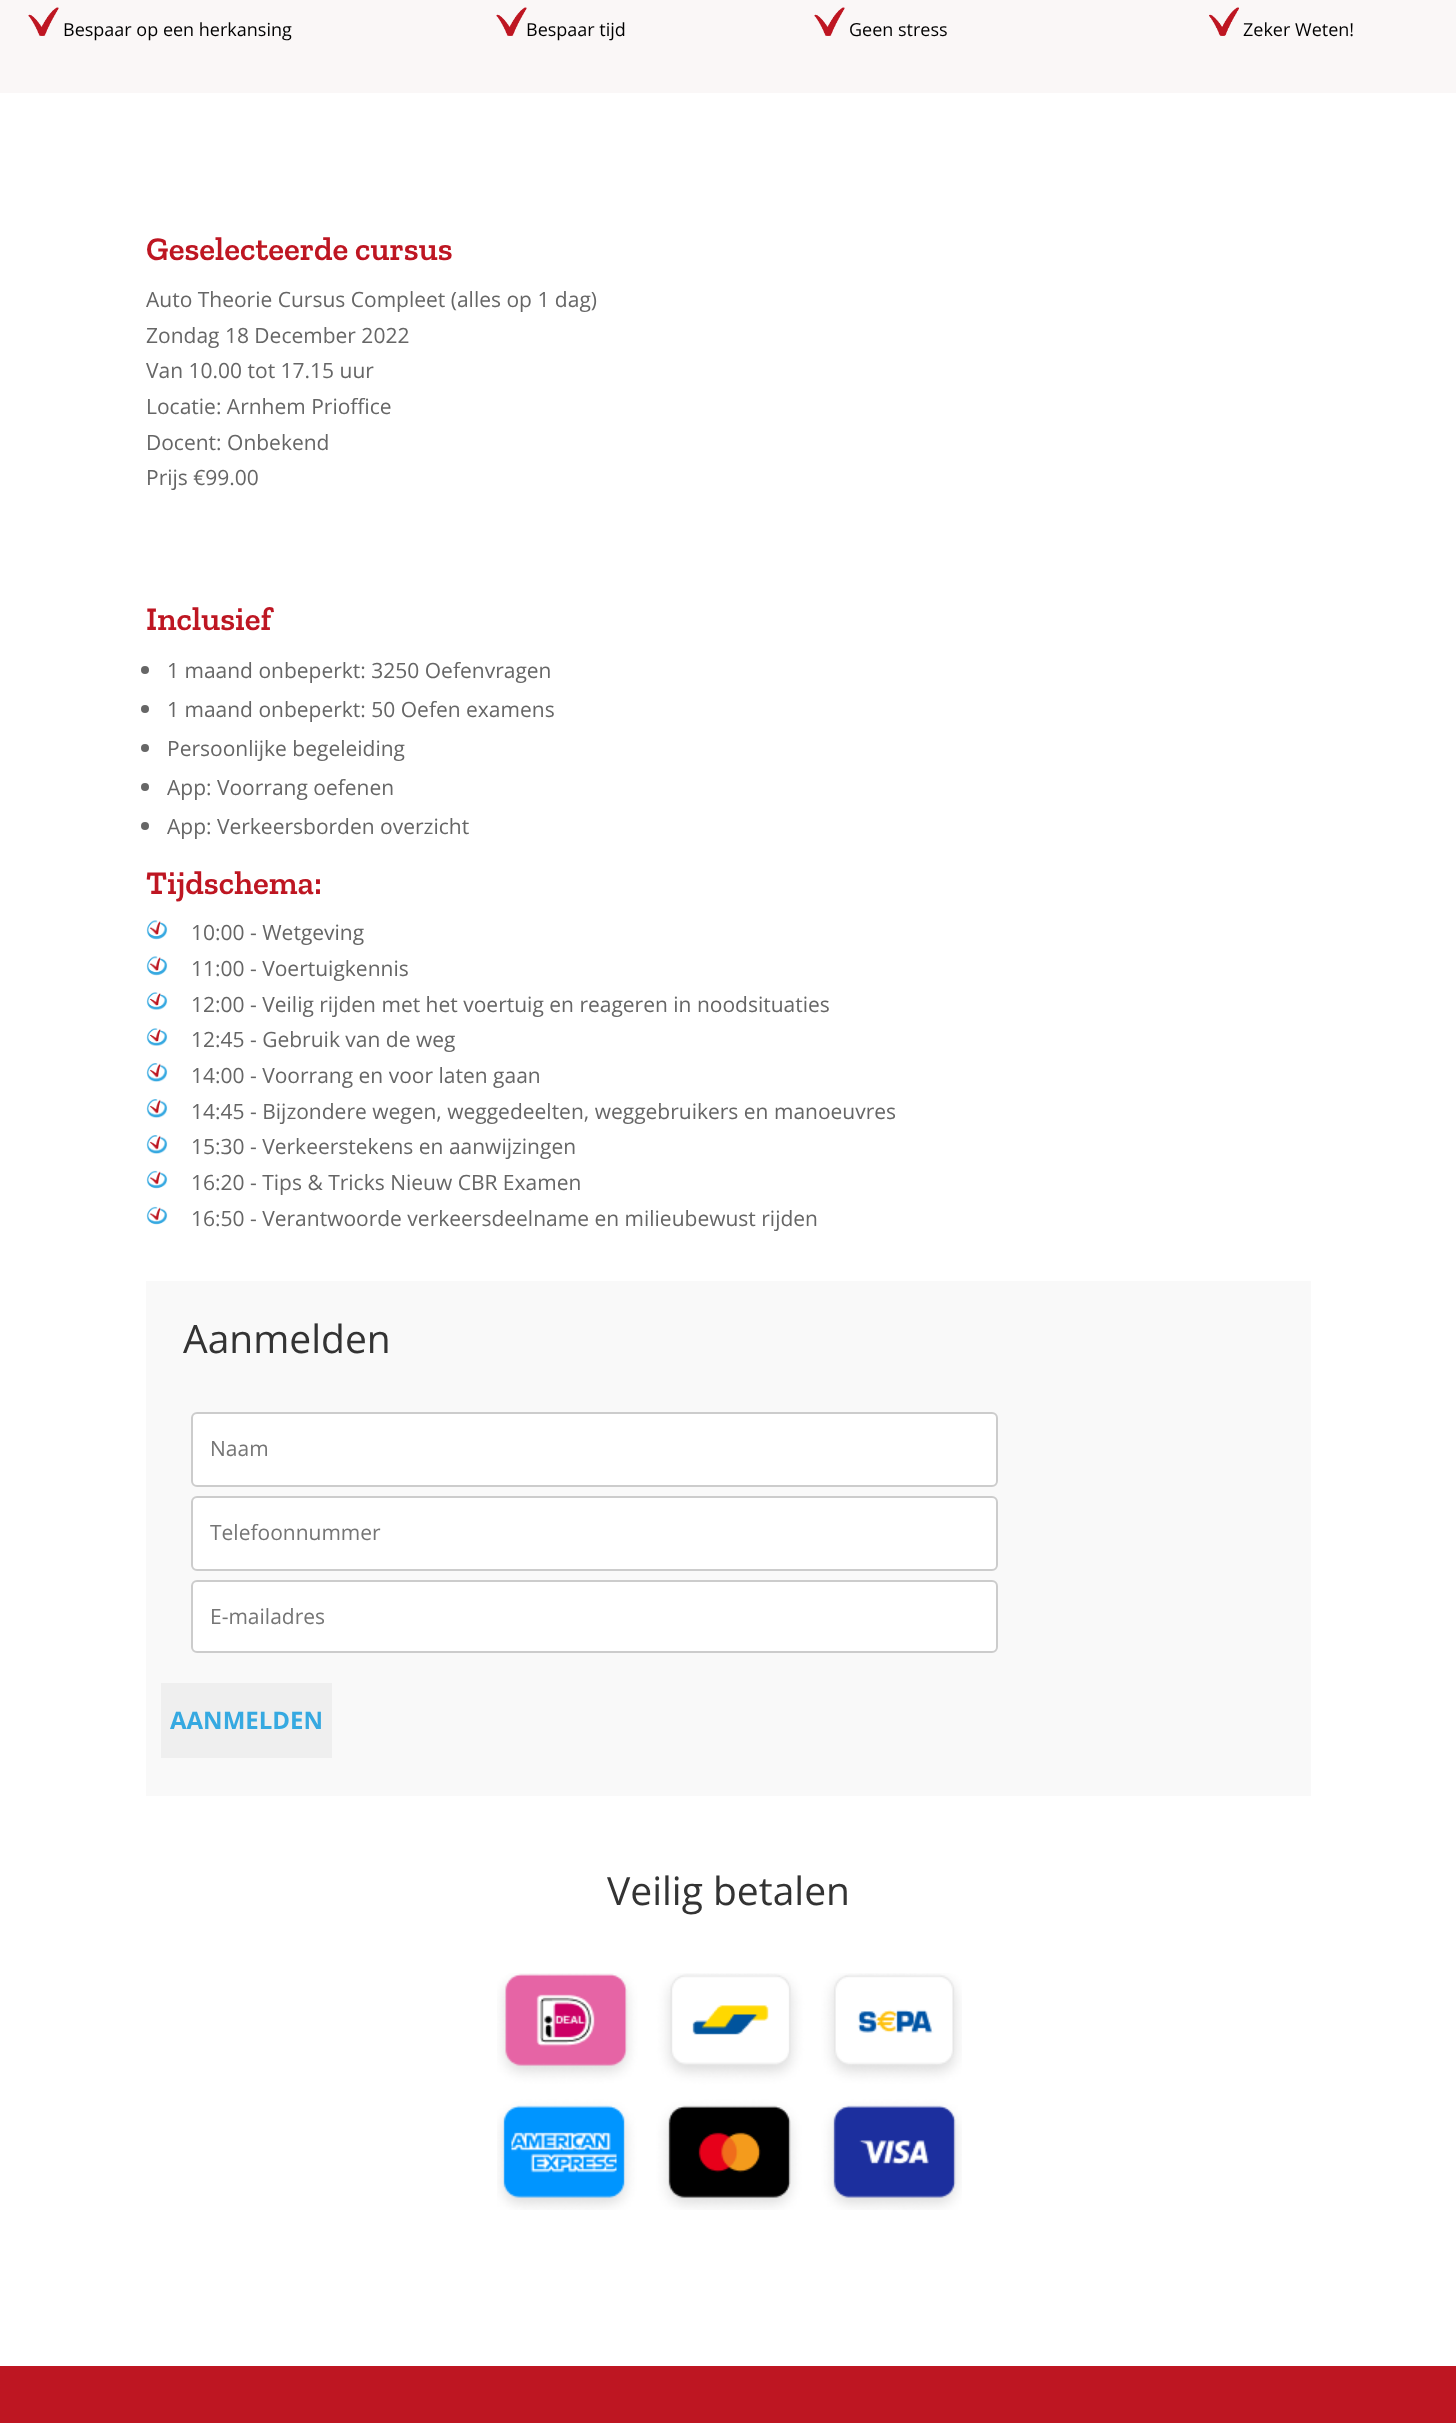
(async () => {
  const canvas = document.querySelector("canvas");
  canvas.width = 1456;
  canvas.height = 2423;
  const ctx = canvas.getContext("2d");
  ctx.miterLimit = 4;
  ctx.fontKerning = "normal";
  async function loadImage(src) {
    const img = new Image();
    img.src = src;
    await img.decode();
    return img;
  }

  ctx.fillStyle = "#ffffff";
  ctx.fillRect(0, 0, 1456, 2423);
  ctx.fillStyle = "#faf7f7";
  ctx.fillRect(0, 0, 1456, 93);
  ctx.drawImage(await loadImage("img/1.png"), 28, 7, 31, 29);
  ctx.drawImage(await loadImage("img/1.png"), 496, 7, 31, 29);
  ctx.drawImage(await loadImage("img/1.png"), 814, 7, 31, 29);
  ctx.drawImage(await loadImage("img/2.png"), 1209, 7, 30, 29);
  ctx.fillStyle = "#666666";
  ctx.beginPath();
  ctx.arc(145, 670, 4, 0, Math.PI * 2);
  ctx.fill();
  ctx.beginPath();
  ctx.arc(145, 709, 4, 0, Math.PI * 2);
  ctx.fill();
  ctx.beginPath();
  ctx.arc(145, 748, 4, 0, Math.PI * 2);
  ctx.fill();
  ctx.beginPath();
  ctx.arc(145, 787, 4, 0, Math.PI * 2);
  ctx.fill();
  ctx.beginPath();
  ctx.arc(145, 826, 4, 0, Math.PI * 2);
  ctx.fill();
  ctx.drawImage(await loadImage("img/3.png"), 146, 920, 22, 20);
  ctx.drawImage(await loadImage("img/3.png"), 146, 956, 22, 20);
  ctx.drawImage(await loadImage("img/4.png"), 146, 992, 22, 18);
  ctx.drawImage(await loadImage("img/4.png"), 146, 1028, 22, 18);
  ctx.drawImage(await loadImage("img/5.png"), 146, 1063, 22, 19);
  ctx.drawImage(await loadImage("img/5.png"), 146, 1099, 22, 19);
  ctx.drawImage(await loadImage("img/5.png"), 146, 1135, 22, 19);
  ctx.drawImage(await loadImage("img/6.png"), 146, 1170, 22, 19);
  ctx.drawImage(await loadImage("img/6.png"), 146, 1206, 22, 19);
  ctx.fillStyle = "#f9f9f9";
  ctx.fillRect(146, 1281, 1165, 515);
  ctx.fillStyle = "#ffffff";
  ctx.beginPath();
  ctx.roundRect(192, 1413, 805, 73, 5);
  ctx.fill();
  ctx.strokeStyle = "#cccccc";
  ctx.lineWidth = 2;
  ctx.stroke();
  ctx.beginPath();
  ctx.roundRect(192, 1497, 805, 73, 5);
  ctx.fill();
  ctx.stroke();
  ctx.beginPath();
  ctx.roundRect(192, 1581, 805, 71, 5);
  ctx.fill();
  ctx.stroke();
  ctx.fillStyle = "#efefef";
  ctx.fillRect(161, 1683, 171, 75);
  ctx.drawImage(await loadImage("img/7.png"), 497, 1973, 465, 237);
  ctx.fillStyle = "#be1622";
  ctx.fillRect(0, 2366, 1456, 57);
  ctx.font = "18px Open Sans";
  ctx.fillStyle = "#000000";
  for (const [text, x, y] of [
    ["Bespaar op een herkansing", 63, 36],
    ["Bespaar tijd", 526, 36],
    ["Geen stress", 849, 36],
    ["Zeker Weten!", 1243, 36],
  ]) {
    ctx.fillText(text, x, y);
  }
  ctx.font = "600 33px Zilla Slab";
  ctx.fillStyle = "#be1622";
  ctx.fillText("Geselecteerde cursus", 146, 260);
  ctx.font = "21px Open Sans";
  ctx.fillStyle = "#666666";
  for (const [text, x, y] of [
    ["Auto Theorie Cursus Compleet (alles op 1 dag)", 146, 307],
    ["Zondag 18 December 2022", 146, 343],
    ["Van 10.00 tot 17.15 uur", 146, 378],
    ["Locatie: Arnhem Prioffice", 146, 414],
    ["Docent: Onbekend", 146, 450],
    ["Prijs €99.00", 146, 485],
  ]) {
    ctx.fillText(text, x, y);
  }
  ctx.font = "600 33px Zilla Slab";
  ctx.fillStyle = "#be1622";
  ctx.fillText("Inclusief", 146, 630);
  ctx.font = "21px Open Sans";
  ctx.fillStyle = "#666666";
  for (const [text, x, y] of [
    ["1 maand onbeperkt: 3250 Oefenvragen", 167, 678],
    ["1 maand onbeperkt: 50 Oefen examens", 167, 717],
    ["Persoonlijke begeleiding", 167, 756],
    ["App: Voorrang oefenen", 167, 795],
    ["App: Verkeersborden overzicht", 167, 834],
  ]) {
    ctx.fillText(text, x, y);
  }
  ctx.font = "600 33px Zilla Slab";
  ctx.fillStyle = "#be1622";
  ctx.fillText("Tijdschema:", 146, 894);
  ctx.font = "21px Open Sans";
  ctx.fillStyle = "#666666";
  for (const [text, x, y] of [
    ["10:00 - Wetgeving", 191, 940],
    ["11:00 - Voertuigkennis", 191, 976],
    ["12:00 - Veilig rijden met het voertuig en reageren in noodsituaties", 191, 1012],
    ["12:45 - Gebruik van de weg", 191, 1047],
    ["14:00 - Voorrang en voor laten gaan", 191, 1083],
    ["14:45 - Bijzondere wegen, weggedeelten, weggebruikers en manoeuvres", 191, 1119],
    ["15:30 - Verkeerstekens en aanwijzingen", 191, 1154],
    ["16:20 - Tips & Tricks Nieuw CBR Examen", 191, 1190],
    ["16:50 - Verantwoorde verkeersdeelname en milieubewust rijden", 191, 1226],
  ]) {
    ctx.fillText(text, x, y);
  }
  ctx.font = "39px Open Sans";
  ctx.fillStyle = "#333333";
  ctx.fillText("Aanmelden", 183, 1353);
  ctx.font = "21px Open Sans";
  ctx.fillStyle = "#757575";
  for (const [text, x, y] of [
    ["Naam", 210, 1456],
    ["Telefoonnummer", 210, 1540],
    ["E-mailadres", 210, 1624],
  ]) {
    ctx.fillText(text, x, y);
  }
  ctx.font = "bold 24px Open Sans";
  ctx.fillStyle = "#36a9e1";
  ctx.fillText("AANMELDEN", 170, 1729);
  ctx.font = "39px Open Sans";
  ctx.fillStyle = "#333333";
  ctx.fillText("Veilig betalen", 607, 1905);
})();
